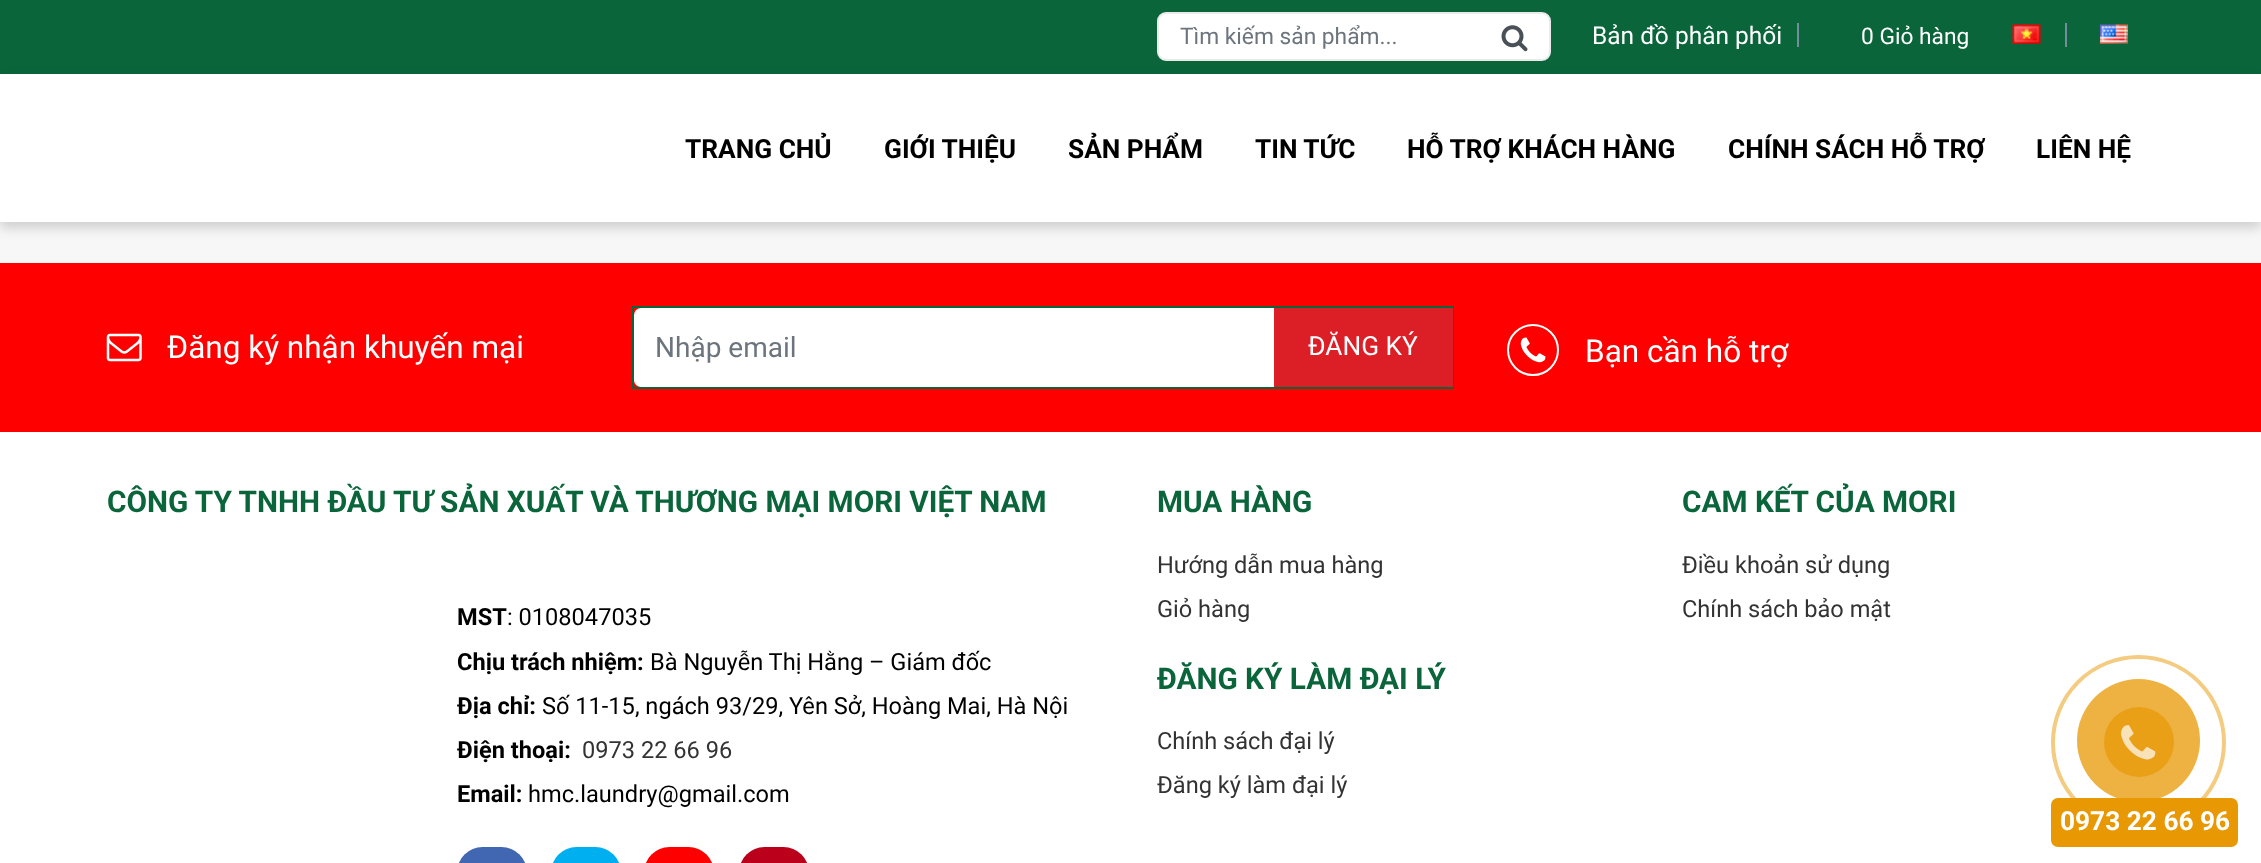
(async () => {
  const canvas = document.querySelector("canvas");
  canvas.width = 2261;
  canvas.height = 863;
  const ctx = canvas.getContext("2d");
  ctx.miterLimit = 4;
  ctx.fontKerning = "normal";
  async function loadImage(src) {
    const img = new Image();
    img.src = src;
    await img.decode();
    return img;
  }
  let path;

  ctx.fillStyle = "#ffffff";
  ctx.fillRect(0, 0, 2261, 863);
  ctx.fillStyle = "#0a653b";
  ctx.fillRect(0, 0, 2261, 74);
  ctx.fillStyle = "#ffffff";
  ctx.beginPath();
  ctx.roundRect(1158, 13, 392, 47, 8);
  ctx.fill();
  ctx.strokeStyle = "#eaeaea";
  ctx.lineWidth = 2;
  ctx.stroke();
  ctx.drawImage(await loadImage("img/1.png"), 1501, 25, 27, 27);
  ctx.fillStyle = "#738e98";
  ctx.fillRect(1797, 23, 2, 24);
  ctx.drawImage(await loadImage("img/2.png"), 2012, 24, 29, 20);
  ctx.fillRect(2065, 23, 2, 24);
  ctx.drawImage(await loadImage("img/3.png"), 2100, 24, 28, 20);
  ctx.fillStyle = "#f7f7f7";
  ctx.fillRect(0, 222, 2261, 41);
  ctx.save();
  path = new Path2D("M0 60H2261V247H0ZM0 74H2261V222H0Z");
  ctx.clip(path, "evenodd");
  ctx.fillStyle = "rgba(0, 0, 0, 0.16)";
  ctx.filter = "blur(6px)";
  ctx.beginPath();
  ctx.rect(0, 79, 2261, 149);
  ctx.fill();
  ctx.filter = "none";
  ctx.restore();
  ctx.fillStyle = "#ff0000";
  ctx.fillRect(0, 263, 2261, 169);
  ctx.drawImage(await loadImage("img/4.png"), 106, 333, 36, 29);
  ctx.strokeStyle = "#0a653b";
  ctx.strokeRect(633, 307, 820, 81);
  ctx.fillStyle = "#ffffff";
  ctx.beginPath();
  ctx.roundRect(634, 308, 640, 79, [7, 0, 0, 7]);
  ctx.fill();
  ctx.fillStyle = "#dc1f26";
  ctx.fillRect(1274, 308, 179, 79);
  ctx.beginPath();
  ctx.arc(1533, 350, 25, 0, Math.PI * 2);
  ctx.strokeStyle = "#ffffff";
  ctx.stroke();
  ctx.drawImage(await loadImage("img/5.png"), 1520, 337, 26, 26);
  ctx.fillStyle = "#4267b2";
  ctx.beginPath();
  ctx.roundRect(457, 847, 70, 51, 35);
  ctx.fill();
  ctx.fillStyle = "#00aff0";
  ctx.beginPath();
  ctx.roundRect(551, 847, 70, 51, 35);
  ctx.fill();
  ctx.fillStyle = "#ff0000";
  ctx.beginPath();
  ctx.roundRect(644, 847, 70, 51, 35);
  ctx.fill();
  ctx.fillStyle = "#bb001b";
  ctx.beginPath();
  ctx.roundRect(739, 847, 70, 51, 35);
  ctx.fill();
  ctx.beginPath();
  ctx.arc(2138.5, 742.5, 85.5, 0, Math.PI * 2);
  ctx.strokeStyle = "#f4cc81";
  ctx.lineWidth = 4;
  ctx.stroke();
  ctx.fillStyle = "#eeb242";
  ctx.beginPath();
  ctx.arc(2138.5, 740.5, 61.5, 0, Math.PI * 2);
  ctx.fill();
  ctx.fillStyle = "#eaa016";
  ctx.beginPath();
  ctx.arc(2139, 742, 35, 0, Math.PI * 2);
  ctx.fill();
  ctx.drawImage(await loadImage("img/6.png"), 2121, 725, 35, 35);
  ctx.fillStyle = "#e89803";
  ctx.beginPath();
  ctx.roundRect(2051, 798, 187, 49, 7);
  ctx.fill();
  ctx.font = "22.75px Roboto";
  ctx.fillStyle = "#6c757d";
  ctx.fillText("Tìm kiếm sản phẩm...", 1180, 44);
  ctx.font = "24.5px Roboto";
  ctx.fillStyle = "#ffffff";
  ctx.fillText("Bản đồ phân phối", 1592, 44);
  ctx.font = "22.75px Roboto";
  ctx.fillText("0 Giỏ hàng", 1861, 44);
  ctx.font = "bold 26.25px Roboto";
  ctx.fillStyle = "#000000";
  for (const [text, x, y] of [
    ["TRANG CHỦ", 685, 158],
    ["GIỚI THIỆU", 884, 158],
    ["SẢN PHẨM", 1068, 158],
    ["TIN TỨC", 1255, 158],
    ["HỖ TRỢ KHÁCH HÀNG", 1407, 158],
    ["CHÍNH SÁCH HỖ TRỢ", 1728, 158],
    ["LIÊN HỆ", 2036, 158],
  ]) {
    ctx.fillText(text, x, y);
  }
  ctx.font = "31.5px Roboto";
  ctx.fillStyle = "#ffffff";
  ctx.fillText("Đăng ký nhận khuyến mại", 167, 358);
  ctx.font = "28px Roboto";
  ctx.fillStyle = "#6c757d";
  ctx.fillText("Nhập email", 655, 357);
  ctx.font = "26.25px Roboto";
  ctx.fillStyle = "#ffffff";
  ctx.fillText("ĐĂNG KÝ", 1308, 355);
  ctx.font = "31.5px Roboto";
  ctx.fillText("Bạn cần hỗ trợ", 1585, 362);
  ctx.font = "bold 29.75px Roboto";
  ctx.fillStyle = "#0a653b";
  ctx.fillText("CÔNG TY TNHH ĐẦU TƯ SẢN XUẤT VÀ THƯƠNG MẠI MORI VIỆT NAM", 107, 512);
  ctx.font = "bold 23.6px Roboto";
  ctx.fillStyle = "#000000";
  ctx.fillText("MST", 457, 625);
  ctx.font = "23.6px Roboto";
  ctx.fillText(": 0108047035", 507, 625);
  ctx.font = "bold 23.6px Roboto";
  ctx.fillText("Chịu trách nhiệm:", 457, 670);
  ctx.font = "23.6px Roboto";
  ctx.fillText("Bà Nguyễn Thị Hằng – Giám đốc", 650, 670);
  ctx.font = "bold 23.6px Roboto";
  ctx.fillText("Địa chỉ:", 457, 714);
  ctx.font = "23.6px Roboto";
  ctx.fillText("Số 11-15, ngách 93/29, Yên Sở, Hoàng Mai, Hà Nội", 542, 714);
  ctx.font = "bold 23.6px Roboto";
  ctx.fillText("Điện thoại:", 457, 758);
  ctx.font = "23.6px Roboto";
  ctx.fillStyle = "#333333";
  ctx.fillText("0973 22 66 96", 582, 758);
  ctx.font = "bold 23.6px Roboto";
  ctx.fillStyle = "#000000";
  ctx.fillText("Email:", 457, 802);
  ctx.font = "23.6px Roboto";
  ctx.fillText("hmc.laundry@gmail.com", 528, 802);
  ctx.font = "bold 29.75px Roboto";
  ctx.fillStyle = "#0a653b";
  ctx.fillText("MUA HÀNG", 1157, 512);
  ctx.font = "23.6px Roboto";
  ctx.fillStyle = "#333333";
  ctx.fillText("Hướng dẫn mua hàng", 1157, 573);
  ctx.fillText("Giỏ hàng", 1157, 617);
  ctx.font = "bold 29.75px Roboto";
  ctx.fillStyle = "#0a653b";
  ctx.fillText("ĐĂNG KÝ LÀM ĐẠI LÝ", 1157, 689);
  ctx.font = "23.6px Roboto";
  ctx.fillStyle = "#333333";
  ctx.fillText("Chính sách đại lý", 1157, 749);
  ctx.fillText("Đăng ký làm đại lý", 1157, 793);
  ctx.font = "bold 29.75px Roboto";
  ctx.fillStyle = "#0a653b";
  ctx.fillText("CAM KẾT CỦA MORI", 1682, 512);
  ctx.font = "23.6px Roboto";
  ctx.fillStyle = "#333333";
  ctx.fillText("Điều khoản sử dụng", 1682, 573);
  ctx.fillText("Chính sách bảo mật", 1682, 617);
  ctx.font = "bold 26.25px Roboto";
  ctx.fillStyle = "#ffffff";
  ctx.fillText("0973 22 66 96", 2060, 830);
})();
